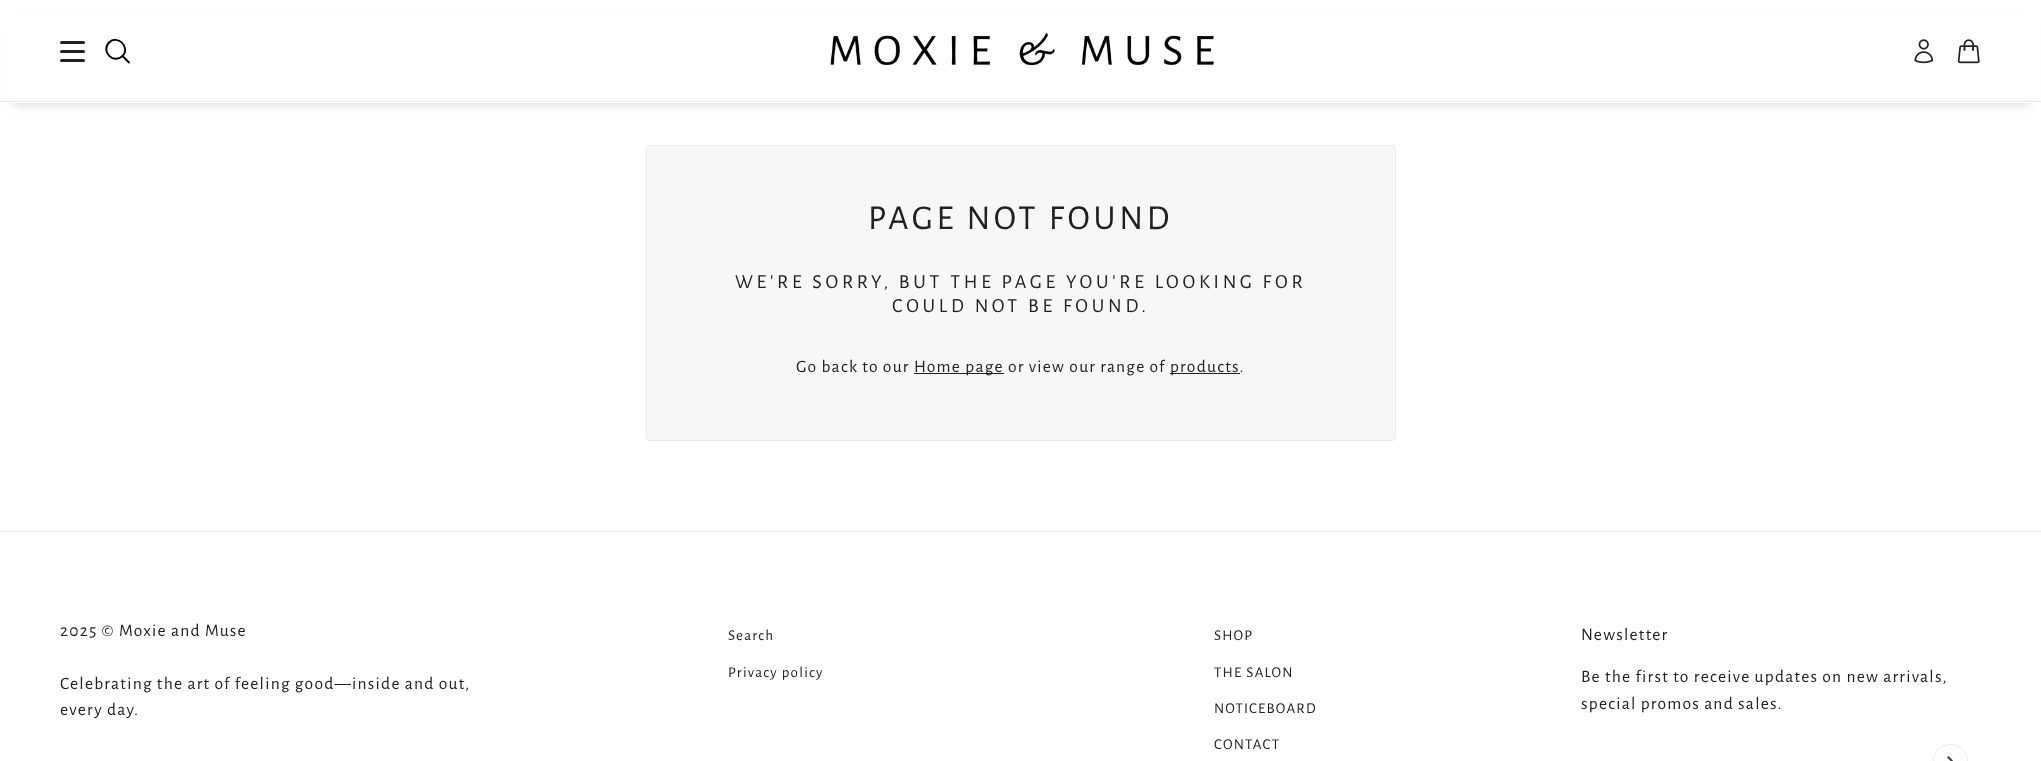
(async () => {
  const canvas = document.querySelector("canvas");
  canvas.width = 2041;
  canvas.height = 761;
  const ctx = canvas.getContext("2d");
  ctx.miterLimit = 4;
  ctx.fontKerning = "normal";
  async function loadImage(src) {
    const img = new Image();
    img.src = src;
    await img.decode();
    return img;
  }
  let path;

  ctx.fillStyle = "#ffffff";
  ctx.fillRect(0, 0, 2041, 761);
  ctx.fillStyle = "rgba(0, 0, 0, 0.2)";
  ctx.filter = "blur(6px)";
  ctx.beginPath();
  ctx.rect(13, 25, 2016, 78);
  ctx.fill();
  ctx.filter = "none";
  ctx.fillStyle = "#ffffff";
  ctx.fillRect(3, 15, 2036, 88);
  ctx.fillStyle = "#212121";
  ctx.beginPath();
  ctx.roundRect(60, 41, 25, 3, 1.5);
  ctx.fill();
  ctx.beginPath();
  ctx.roundRect(60, 50, 25, 3, 1.5);
  ctx.fill();
  ctx.beginPath();
  ctx.roundRect(60, 59, 25, 3, 1.5);
  ctx.fill();
  path = new Path2D("M129 62.5L122.5 56M122.5 56C131 47.5 117.5 34 109 42.5C100.5 51.5 113.5 64.5 122.5 56Z");
  ctx.strokeStyle = "#000000";
  ctx.lineWidth = 1.9;
  ctx.lineCap = "round";
  ctx.lineJoin = "round";
  ctx.stroke(path);
  ctx.drawImage(await loadImage("img/1.png"), 830, 32, 384, 34);
  ctx.drawImage(await loadImage("img/2.png"), 1914, 39, 20, 25);
  ctx.drawImage(await loadImage("img/3.png"), 1957, 39, 23, 25);
  ctx.fillStyle = "#e9e9e9";
  ctx.fillRect(0, 101, 2041, 1);
  ctx.fillStyle = "#f7f7f7";
  ctx.beginPath();
  ctx.roundRect(646.5, 145.5, 749, 295, 3.5);
  ctx.fill();
  ctx.strokeStyle = "#eaeaea";
  ctx.lineWidth = 1;
  ctx.lineJoin = "miter";
  ctx.stroke();
  for (const [x, y, w, h, color] of [
    [914, 373, 90, 1, "#212121"],
    [1170, 373, 70, 1, "#212121"],
    [0, 531, 2041, 1, "#e9e9e9"],
  ]) {
    ctx.fillStyle = color;
    ctx.fillRect(x, y, w, h);
  }
  ctx.beginPath();
  ctx.roundRect(1933.5, 744.5, 34, 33, 16.5);
  ctx.strokeStyle = "#ececec";
  ctx.stroke();
  ctx.fillStyle = "#424242";
  path = new Path2D("M1948.5 756L1953 760.5L1951.5 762L1947 757.5Z");
  ctx.fill(path);
  ctx.letterSpacing = "3.75px";
  ctx.font = "35px Alegreya Sans";
  ctx.fillStyle = "#212121";
  ctx.fillText("PAGE NOT FOUND", 868, 229);
  ctx.font = "20px Alegreya Sans";
  ctx.fillText("WE'RE SORRY, BUT THE PAGE YOU'RE LOOKING FOR", 735, 288);
  ctx.fillText("COULD NOT BE FOUND.", 892, 312);
  ctx.letterSpacing = "1.25px";
  ctx.font = "17.5px Alegreya Sans";
  for (const [text, x, y] of [
    ["Go back to our", 796, 372],
    ["Home page or view our range of", 914, 372],
    ["products.", 1170, 372],
    ["2025 © Moxie and Muse", 60, 636],
    ["Celebrating the art of feeling good—inside and out,", 60, 689],
    ["every day.", 60, 715],
  ]) {
    ctx.fillText(text, x, y);
  }
  ctx.font = "15px Alegreya Sans";
  for (const [text, x, y] of [
    ["Search", 728, 640],
    ["Privacy policy", 728, 677],
    ["SHOP", 1214, 640],
    ["THE SALON", 1214, 677],
    ["NOTICEBOARD", 1214, 713],
    ["CONTACT", 1214, 749],
  ]) {
    ctx.fillText(text, x, y);
  }
  ctx.font = "17.5px Alegreya Sans";
  for (const [text, x, y] of [
    ["Newsletter", 1581, 640],
    ["Be the first to receive updates on new arrivals,", 1581, 682],
    ["special promos and sales.", 1581, 709],
  ]) {
    ctx.fillText(text, x, y);
  }
})();
